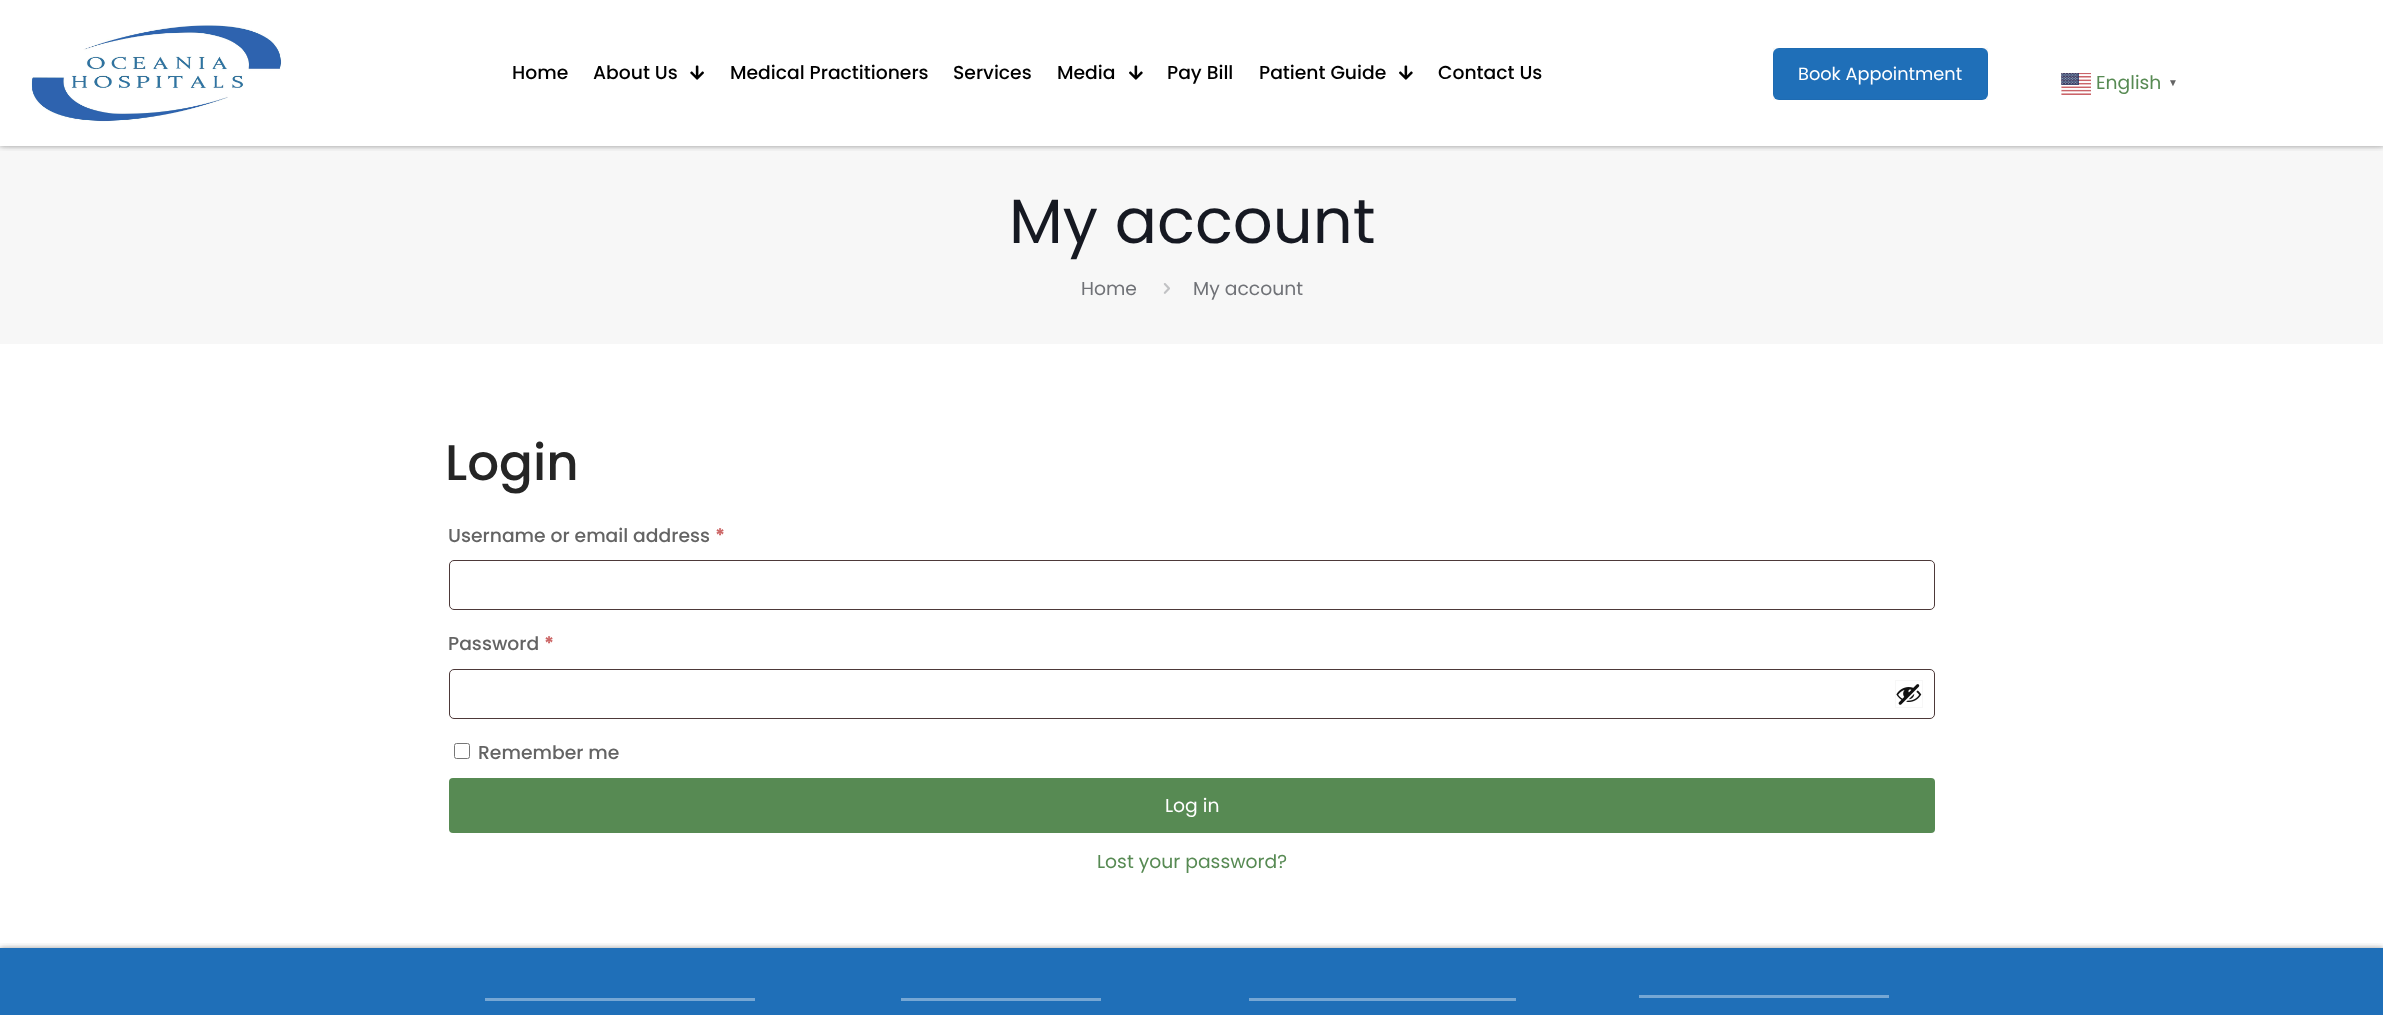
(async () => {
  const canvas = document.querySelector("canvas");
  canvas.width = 2383;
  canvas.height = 1015;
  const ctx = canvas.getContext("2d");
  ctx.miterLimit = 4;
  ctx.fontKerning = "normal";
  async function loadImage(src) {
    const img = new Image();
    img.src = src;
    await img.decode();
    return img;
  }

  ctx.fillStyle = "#ffffff";
  ctx.fillRect(0, 0, 2383, 1015);
  ctx.fillStyle = "#f7f7f7";
  ctx.fillRect(0, 146, 2383, 198);
  ctx.save();
  ctx.beginPath();
  ctx.rect(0, 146, 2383, 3);
  ctx.clip();
  ctx.fillStyle = "rgba(0, 0, 0, 0.23)";
  ctx.filter = "blur(2px)";
  ctx.beginPath();
  ctx.rect(0, 0, 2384, 146);
  ctx.fill();
  ctx.filter = "none";
  ctx.restore();
  ctx.save();
  ctx.beginPath();
  ctx.rect(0, 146, 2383, 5);
  ctx.clip();
  ctx.fillStyle = "rgba(0, 0, 0, 0.19)";
  ctx.filter = "blur(4px)";
  ctx.beginPath();
  ctx.rect(0, 0, 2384, 146);
  ctx.fill();
  ctx.filter = "none";
  ctx.restore();
  ctx.drawImage(await loadImage("img/1.png"), 31, 25, 251, 97);
  ctx.drawImage(await loadImage("img/2.png"), 690, 65, 14, 15);
  ctx.drawImage(await loadImage("img/3.png"), 1129, 65, 14, 15);
  ctx.drawImage(await loadImage("img/3.png"), 1399, 65, 14, 15);
  ctx.fillStyle = "#1f6fb8";
  ctx.beginPath();
  ctx.roundRect(1773, 48, 215, 52, 6);
  ctx.fill();
  ctx.strokeStyle = "rgba(0, 0, 0, 0.03)";
  ctx.strokeRect(1773.5, 48.5, 214, 51);
  ctx.drawImage(await loadImage("img/4.png"), 2061, 73, 30, 22);
  ctx.drawImage(await loadImage("img/5.png"), 1163, 283, 7, 11);
  ctx.beginPath();
  ctx.roundRect(449.5, 560.5, 1485, 49, 4.5);
  ctx.strokeStyle = "#4d3939";
  ctx.stroke();
  ctx.beginPath();
  ctx.roundRect(449.5, 669.5, 1485, 49, 4.5);
  ctx.stroke();
  ctx.strokeStyle = "#f7f7f7";
  ctx.strokeRect(1895.5, 680.5, 27, 27);
  ctx.drawImage(await loadImage("img/6.png"), 1896, 684, 26, 21);
  ctx.beginPath();
  ctx.roundRect(454.5, 743.5, 15, 15, 2);
  ctx.strokeStyle = "#767676";
  ctx.stroke();
  ctx.fillStyle = "#578a53";
  ctx.beginPath();
  ctx.roundRect(449, 778, 1486, 55, 4);
  ctx.fill();
  ctx.fillStyle = "#1f6fb8";
  ctx.fillRect(0, 948, 2383, 67);
  ctx.save();
  ctx.beginPath();
  ctx.rect(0, 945, 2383, 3);
  ctx.clip();
  ctx.fillStyle = "rgba(0, 0, 0, 0.23)";
  ctx.filter = "blur(2px)";
  ctx.beginPath();
  ctx.rect(0, 948, 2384, 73);
  ctx.fill();
  ctx.filter = "none";
  ctx.restore();
  ctx.save();
  ctx.beginPath();
  ctx.rect(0, 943, 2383, 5);
  ctx.clip();
  ctx.fillStyle = "rgba(0, 0, 0, 0.19)";
  ctx.filter = "blur(4px)";
  ctx.beginPath();
  ctx.rect(0, 948, 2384, 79);
  ctx.fill();
  ctx.filter = "none";
  ctx.restore();
  for (const [x, y, w, h, color] of [
    [1639, 995, 250, 3, "#76a7d4"],
    [485, 998, 270, 3, "#76a7d4"],
    [901, 998, 200, 3, "#76a7d4"],
    [1249, 998, 267, 3, "#76a7d4"],
  ]) {
    ctx.fillStyle = color;
    ctx.fillRect(x, y, w, h);
  }
  ctx.font = "500 18.75px Poppins";
  ctx.fillStyle = "#000000";
  for (const [text, x, y] of [
    ["Home", 512, 79],
    ["About Us", 593, 79],
    ["Medical Practitioners", 730, 79],
    ["Services", 953, 79],
    ["Media", 1057, 79],
    ["Pay Bill", 1167, 79],
    ["Patient Guide", 1259, 79],
    ["Contact Us", 1438, 79],
  ]) {
    ctx.fillText(text, x, y);
  }
  ctx.font = "17.75px Poppins";
  ctx.fillStyle = "#ffffff";
  ctx.fillText("Book Appointment", 1798, 80);
  ctx.font = "18.75px Poppins";
  ctx.fillStyle = "#578a53";
  ctx.fillText("English", 2096, 89);
  ctx.font = "bold 10px Liberation Sans";
  ctx.fillStyle = "#646464";
  ctx.fillText("▼", 2168, 86);
  ctx.font = "62.5px Poppins";
  ctx.fillStyle = "#161922";
  ctx.fillText("My account", 1009, 243);
  ctx.font = "18.75px Poppins";
  ctx.fillStyle = "#707277";
  ctx.fillText("Home", 1081, 295);
  ctx.fillText("My account", 1193, 295);
  ctx.font = "500 50px Poppins";
  ctx.fillStyle = "#252525";
  ctx.fillText("Login", 445, 480);
  ctx.font = "500 18.75px Poppins";
  ctx.fillStyle = "#646464";
  ctx.fillText("Username or email address", 448, 542);
  ctx.font = "bold 18.75px Poppins";
  ctx.fillStyle = "#cc6666";
  ctx.fillText("*", 715, 542);
  ctx.font = "500 18.75px Poppins";
  ctx.fillStyle = "#646464";
  ctx.fillText("Password", 448, 650);
  ctx.font = "bold 18.75px Poppins";
  ctx.fillStyle = "#cc6666";
  ctx.fillText("*", 544, 650);
  ctx.font = "500 18.75px Poppins";
  ctx.fillStyle = "#646464";
  ctx.fillText("Remember me", 478, 759);
  ctx.font = "18.75px Poppins";
  ctx.fillStyle = "#ffffff";
  ctx.fillText("Log in", 1165, 812);
  ctx.fillStyle = "#578a53";
  ctx.fillText("Lost your password?", 1097, 868);
})();
